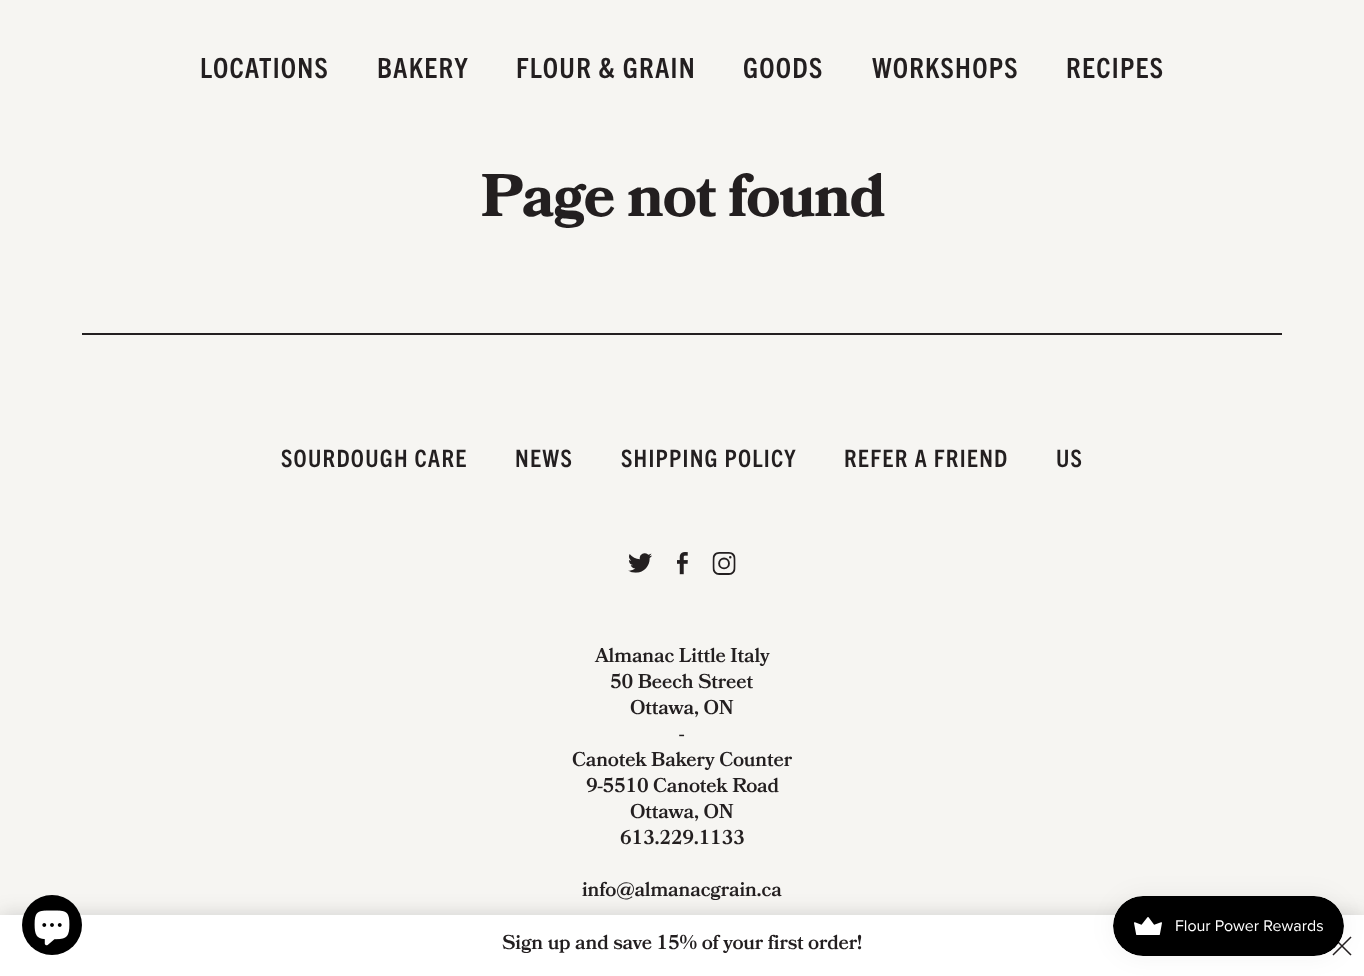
(async () => {
  const canvas = document.querySelector("canvas");
  canvas.width = 1364;
  canvas.height = 976;
  const ctx = canvas.getContext("2d");
  ctx.miterLimit = 4;
  ctx.fontKerning = "normal";
  async function loadImage(src) {
    const img = new Image();
    img.src = src;
    await img.decode();
    return img;
  }
  let path;

  ctx.fillStyle = "#f6f5f2";
  ctx.fillRect(0, 0, 1364, 976);
  ctx.fillStyle = "rgba(50, 50, 50, 0.2)";
  ctx.filter = "blur(10px)";
  ctx.beginPath();
  ctx.rect(0, 915, 1364, 61);
  ctx.fill();
  ctx.filter = "none";
  ctx.fillStyle = "#ffffff";
  ctx.fillRect(0, 915, 1364, 61);
  ctx.fillStyle = "#000000";
  ctx.beginPath();
  ctx.arc(52, 925, 30, 0, Math.PI * 2);
  ctx.fill();
  ctx.drawImage(await loadImage("img/1.png"), 34, 910, 36, 36);
  ctx.fillStyle = "#231f20";
  ctx.fillRect(82, 333, 1200, 2);
  ctx.drawImage(await loadImage("img/2.png"), 628, 553, 24, 20);
  ctx.drawImage(await loadImage("img/3.png"), 677, 552, 11, 23);
  ctx.drawImage(await loadImage("img/4.png"), 712, 552, 24, 23);
  path = new Path2D("M1333.5 937.5L1350.5 954.5M1350.5 937.5L1333.5 954.5");
  ctx.strokeStyle = "#231f20";
  ctx.lineWidth = 1.5;
  ctx.lineCap = "square";
  ctx.stroke(path);
  ctx.fillStyle = "rgba(0, 0, 0, 0.05)";
  ctx.filter = "blur(12.5px)";
  ctx.beginPath();
  ctx.roundRect(1113, 896, 231, 60, 30);
  ctx.fill();
  ctx.filter = "none";
  ctx.drawImage(await loadImage("img/5.png"), 1113, 896, 231, 60);
  ctx.letterSpacing = "1.25px";
  ctx.font = "bold 28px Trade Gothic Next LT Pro";
  ctx.fillStyle = "#231f20";
  for (const [text, x, y] of [
    ["LOCATIONS", 200, 78],
    ["BAKERY", 377, 78],
    ["FLOUR & GRAIN", 516, 78],
    ["GOODS", 743, 78],
    ["WORKSHOPS", 872, 78],
    ["RECIPES", 1066, 78],
  ]) {
    ctx.fillText(text, x, y);
  }
  ctx.letterSpacing = "-1.25px";
  ctx.font = "bold 60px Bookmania";
  ctx.fillText("Page not found", 481, 216);
  ctx.letterSpacing = "1.25px";
  ctx.font = "bold 24px Trade Gothic Next LT Pro";
  for (const [text, x, y] of [
    ["SOURDOUGH CARE", 281, 467],
    ["NEWS", 515, 467],
    ["SHIPPING POLICY", 621, 467],
    ["REFER A FRIEND", 844, 467],
    ["US", 1056, 467],
  ]) {
    ctx.fillText(text, x, y);
  }
  ctx.letterSpacing = "-0.2px";
  ctx.font = "600 20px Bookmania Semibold";
  for (const [text, x, y] of [
    ["Almanac Little Italy", 595, 662],
    ["50 Beech Street", 610, 688],
    ["Ottawa, ON", 630, 714],
    ["-", 679, 740],
    ["Canotek Bakery Counter", 572, 766],
    ["9-5510 Canotek Road", 586, 792],
    ["Ottawa, ON", 630, 818],
    ["613.229.1133", 620, 844],
    ["info@almanacgrain.ca", 582, 896],
    ["Sign up and save 15% of your first order!", 502, 949],
  ]) {
    ctx.fillText(text, x, y);
  }
})();
